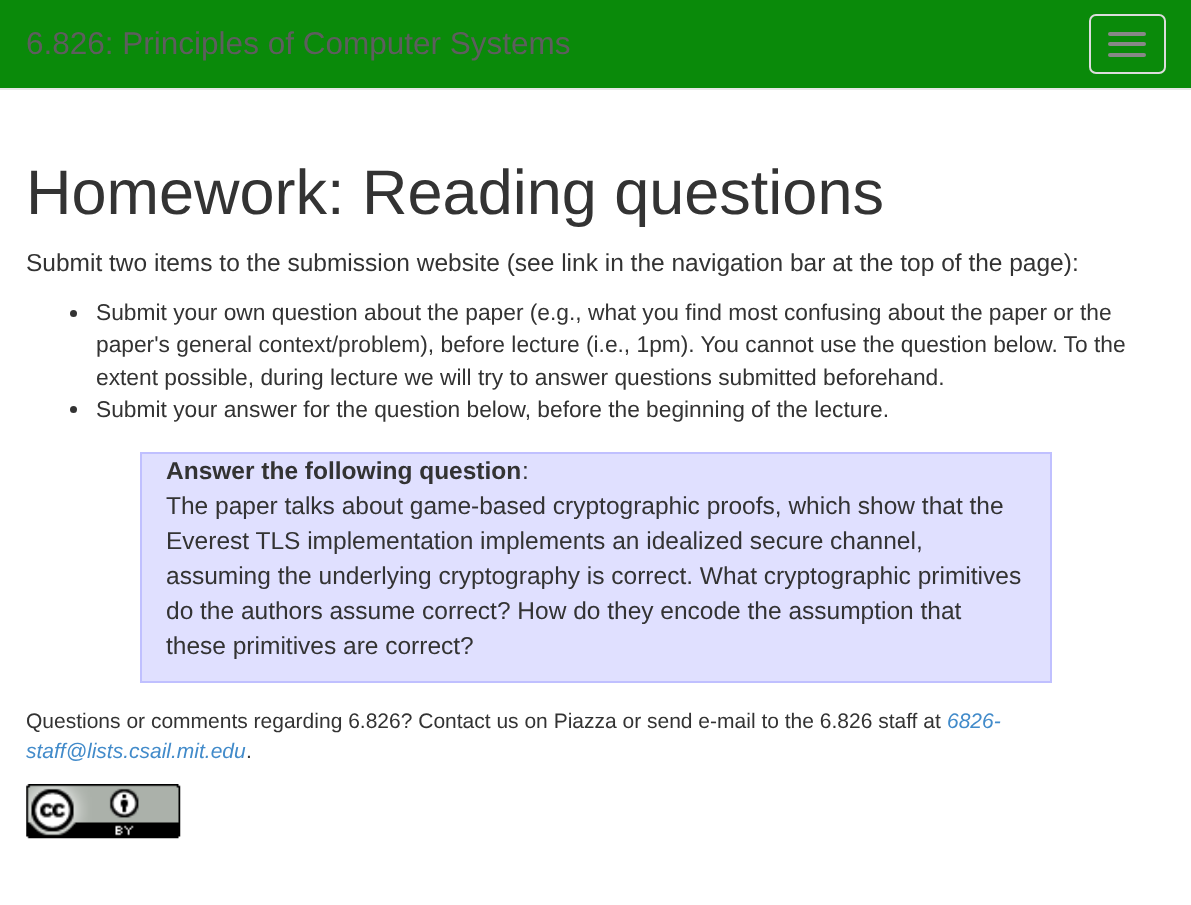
(async () => {
  const canvas = document.querySelector("canvas");
  canvas.width = 1191;
  canvas.height = 905;
  const ctx = canvas.getContext("2d");
  ctx.miterLimit = 4;
  ctx.fontKerning = "normal";
  async function loadImage(src) {
    const img = new Image();
    img.src = src;
    await img.decode();
    return img;
  }

  ctx.fillStyle = "#ffffff";
  ctx.fillRect(0, 0, 1191, 905);
  ctx.fillStyle = "#0a8a0a";
  ctx.fillRect(0, 0, 1191, 88);
  ctx.fillStyle = "#e7e7e7";
  ctx.fillRect(0, 88, 1191, 2);
  ctx.beginPath();
  ctx.roundRect(1090, 15, 75, 58, 6);
  ctx.strokeStyle = "#dddddd";
  ctx.lineWidth = 2;
  ctx.stroke();
  ctx.fillStyle = "#888888";
  ctx.beginPath();
  ctx.roundRect(1108, 32, 38, 4, 2);
  ctx.fill();
  ctx.beginPath();
  ctx.roundRect(1108, 42, 38, 4, 2);
  ctx.fill();
  ctx.beginPath();
  ctx.roundRect(1108, 53, 38, 4, 2);
  ctx.fill();
  ctx.fillStyle = "#333333";
  ctx.beginPath();
  ctx.arc(73.5, 313.5, 3.5, 0, Math.PI * 2);
  ctx.fill();
  ctx.beginPath();
  ctx.arc(73.5, 409.5, 3.5, 0, Math.PI * 2);
  ctx.fill();
  ctx.fillStyle = "#e0e0ff";
  ctx.beginPath();
  ctx.rect(141, 453, 910, 229);
  ctx.fill();
  ctx.strokeStyle = "#c0c0ff";
  ctx.stroke();
  ctx.drawImage(await loadImage("img/1.png"), 26, 784, 155, 55);
  ctx.font = "31.5px Liberation Sans";
  ctx.fillStyle = "#5e5e5e";
  ctx.fillText("6.826: Principles of Computer Systems", 26, 54);
  ctx.font = "63px Liberation Sans";
  ctx.fillStyle = "#333333";
  ctx.fillText("Homework: Reading questions", 26, 214);
  ctx.font = "24.5px Liberation Sans";
  ctx.fillText("Submit two items to the submission website (see link in the navigation bar at the top of the page):", 26, 271);
  ctx.font = "22.75px Liberation Sans";
  for (const [text, x, y] of [
    ["Submit your own question about the paper (e.g., what you find most confusing about the paper or the", 96, 320],
    ["paper's general context/problem), before lecture (i.e., 1pm). You cannot use the question below. To the", 96, 352],
    ["extent possible, during lecture we will try to answer questions submitted beforehand.", 96, 385],
    ["Submit your answer for the question below, before the beginning of the lecture.", 96, 417],
  ]) {
    ctx.fillText(text, x, y);
  }
  ctx.font = "bold 24.5px Liberation Sans";
  ctx.fillText("Answer the following question", 166, 479);
  ctx.font = "24.5px Liberation Sans";
  for (const [text, x, y] of [
    [":", 522, 479],
    ["The paper talks about game-based cryptographic proofs, which show that the", 166, 514],
    ["Everest TLS implementation implements an idealized secure channel,", 166, 549],
    ["assuming the underlying cryptography is correct. What cryptographic primitives", 166, 584],
    ["do the authors assume correct? How do they encode the assumption that", 166, 619],
    ["these primitives are correct?", 166, 654],
  ]) {
    ctx.fillText(text, x, y);
  }
  ctx.font = "21px Liberation Sans";
  ctx.fillText("Questions or comments regarding 6.826? Contact us on Piazza or send e-mail to the 6.826 staff at", 26, 728);
  ctx.font = "italic 21px Liberation Sans";
  ctx.fillStyle = "#428bca";
  ctx.fillText("6826-", 947, 728);
  ctx.fillText("staff@lists.csail.mit.edu", 26, 758);
  ctx.font = "21px Liberation Sans";
  ctx.fillStyle = "#333333";
  ctx.fillText(".", 246, 758);
})();
